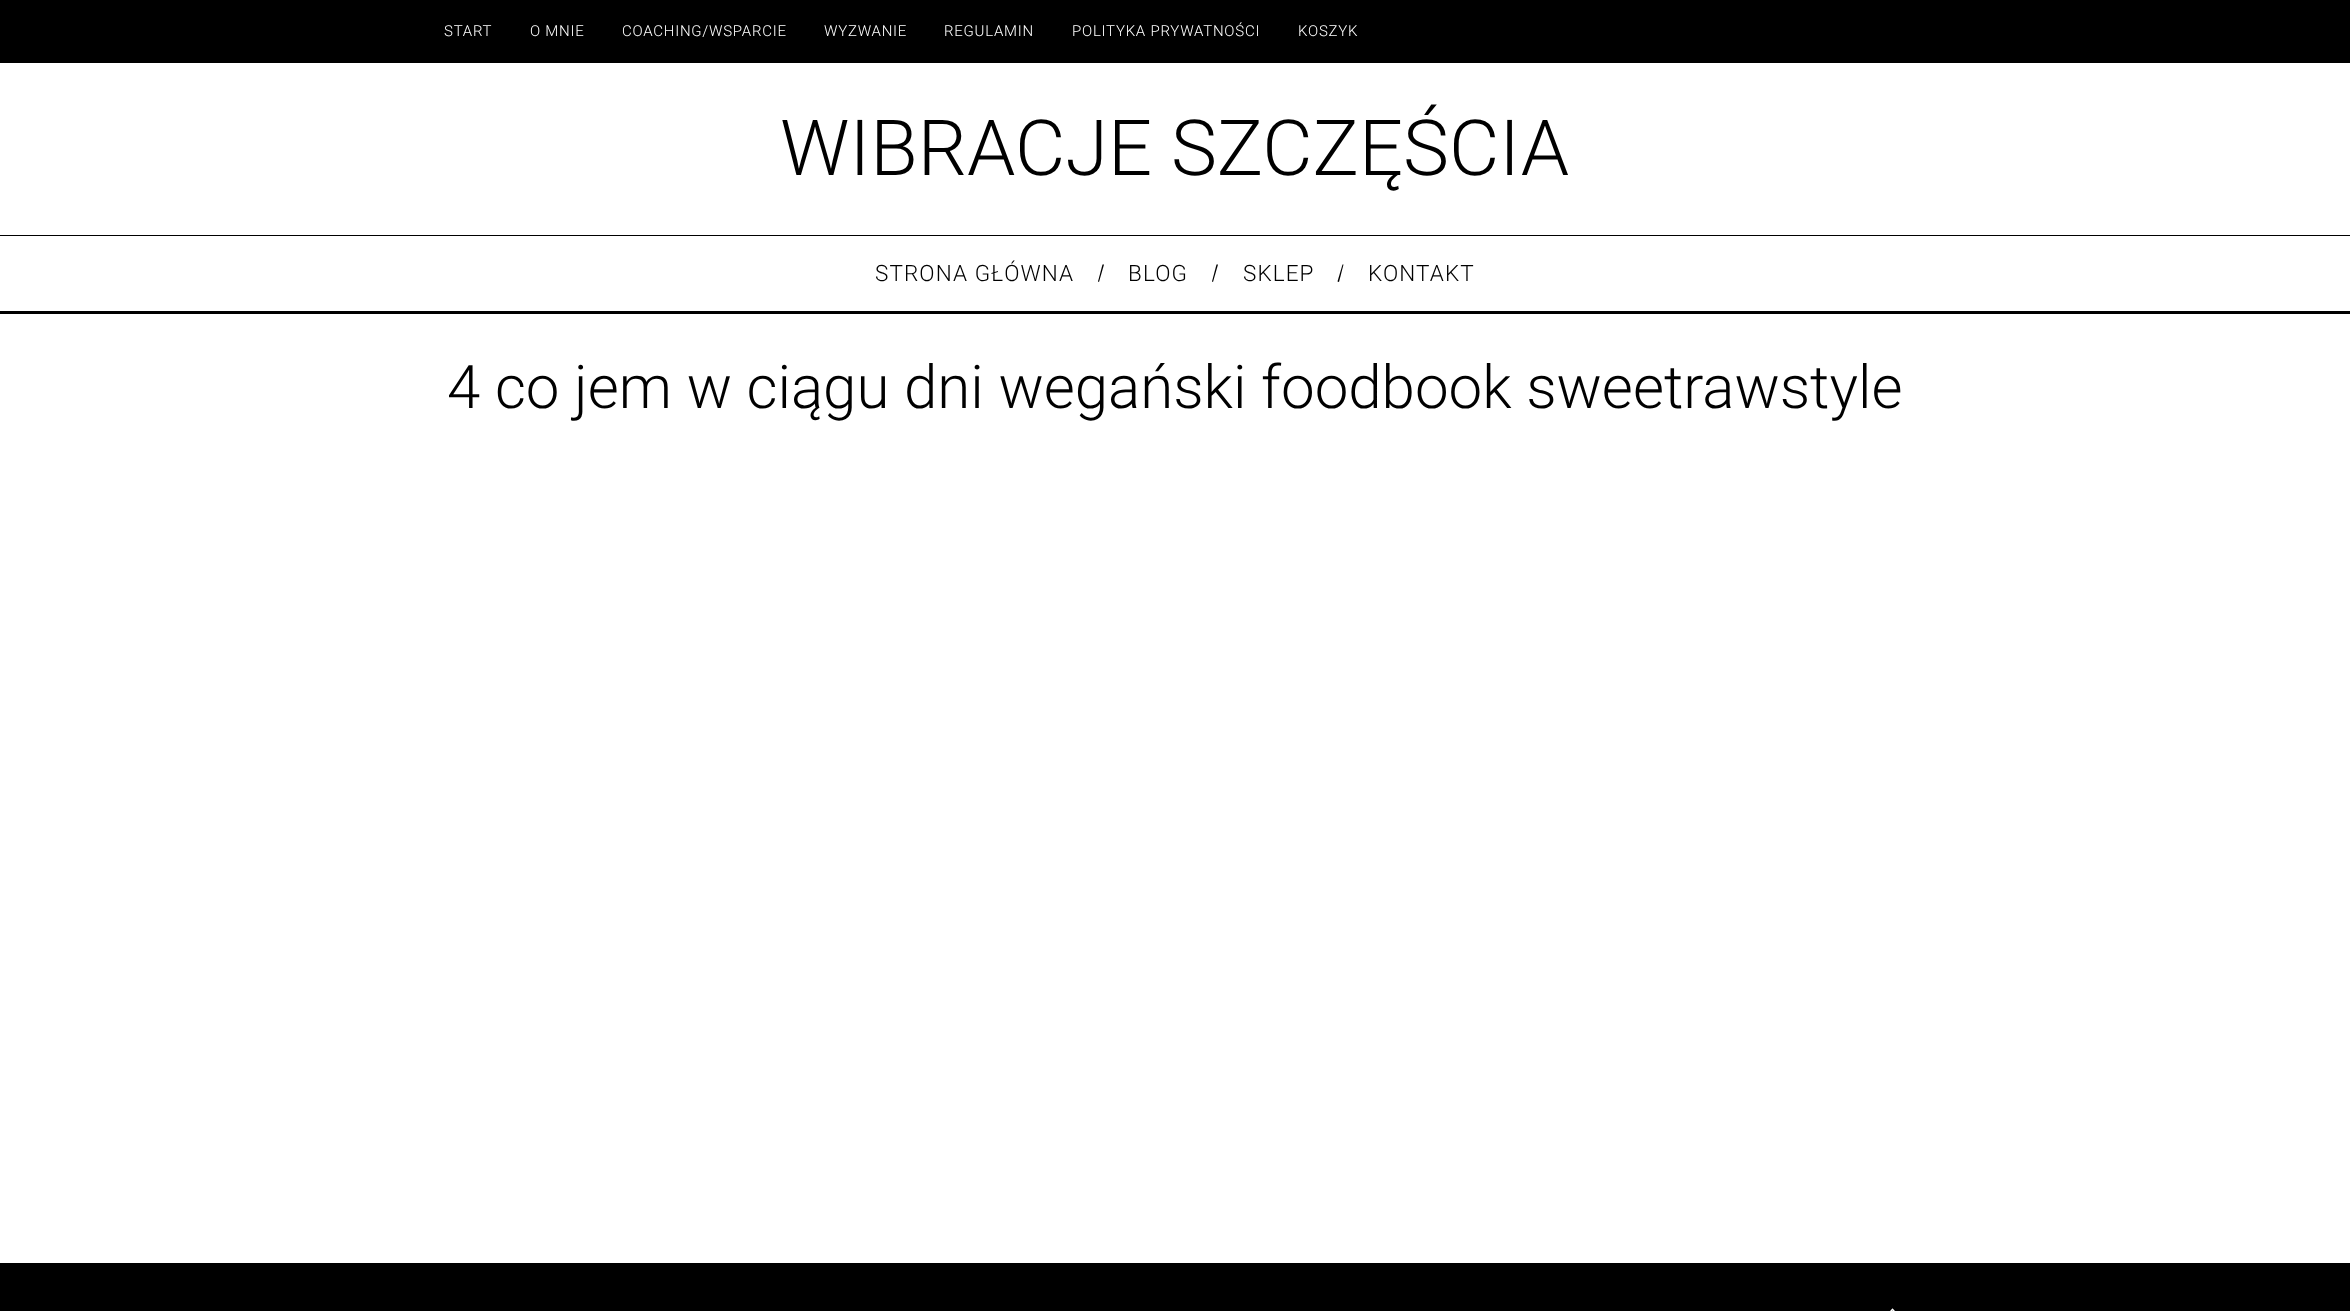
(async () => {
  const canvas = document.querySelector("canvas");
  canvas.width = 2350;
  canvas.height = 1311;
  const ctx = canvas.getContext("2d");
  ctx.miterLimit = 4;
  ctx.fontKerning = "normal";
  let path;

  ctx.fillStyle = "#ffffff";
  ctx.fillRect(0, 0, 2350, 1311);
  for (const [x, y, w, h, color] of [
    [0, 0, 2350, 63, "#000000"],
    [0, 235, 2350, 1, "#000000"],
    [0, 311, 2350, 3, "#000000"],
  ]) {
    ctx.fillStyle = color;
    ctx.fillRect(x, y, w, h);
  }
  path = new Path2D("M1102.5 264.5H1104L1099 282L1098 281.5Z");
  ctx.fill(path);
  path = new Path2D("M1216.5 264.5H1218L1213 282L1212 281.5Z");
  ctx.fill(path);
  path = new Path2D("M1342.5 264.5H1343.5L1339 282L1337.5 281.5Z");
  ctx.fill(path);
  ctx.fillRect(0, 1263, 2350, 48);
  ctx.fillStyle = "#ffffff";
  path = new Path2D("M1883.5 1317.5L1892.5 1308.5L1893.5 1309.5L1884.5 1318.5Z");
  ctx.fill(path);
  path = new Path2D("M1891.5 1309.5L1892.5 1308.5L1901.5 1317.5L1900.5 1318.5Z");
  ctx.fill(path);
  ctx.letterSpacing = "0.75px";
  ctx.font = "300 15px Roboto";
  for (const [text, x, y] of [
    ["START", 444, 36],
    ["O MNIE", 530, 36],
    ["COACHING/WSPARCIE", 622, 36],
    ["WYZWANIE", 824, 36],
    ["REGULAMIN", 944, 36],
    ["POLITYKA PRYWATNOŚCI", 1072, 36],
    ["KOSZYK", 1298, 36],
  ]) {
    ctx.fillText(text, x, y);
  }
  ctx.letterSpacing = "0px";
  ctx.font = "300 77.5px Roboto";
  ctx.fillStyle = "#000000";
  ctx.fillText("WIBRACJE SZCZĘŚCIA", 780, 175);
  ctx.letterSpacing = "1.1px";
  ctx.font = "300 22.5px Roboto";
  for (const [text, x, y] of [
    ["STRONA GŁÓWNA", 875, 281],
    ["BLOG", 1128, 281],
    ["SKLEP", 1243, 281],
    ["KONTAKT", 1368, 281],
  ]) {
    ctx.fillText(text, x, y);
  }
  ctx.letterSpacing = "0px";
  ctx.font = "300 60px Roboto";
  ctx.fillText("4 co jem w ciągu dni wegański foodbook sweetrawstyle", 447, 408);
})();
